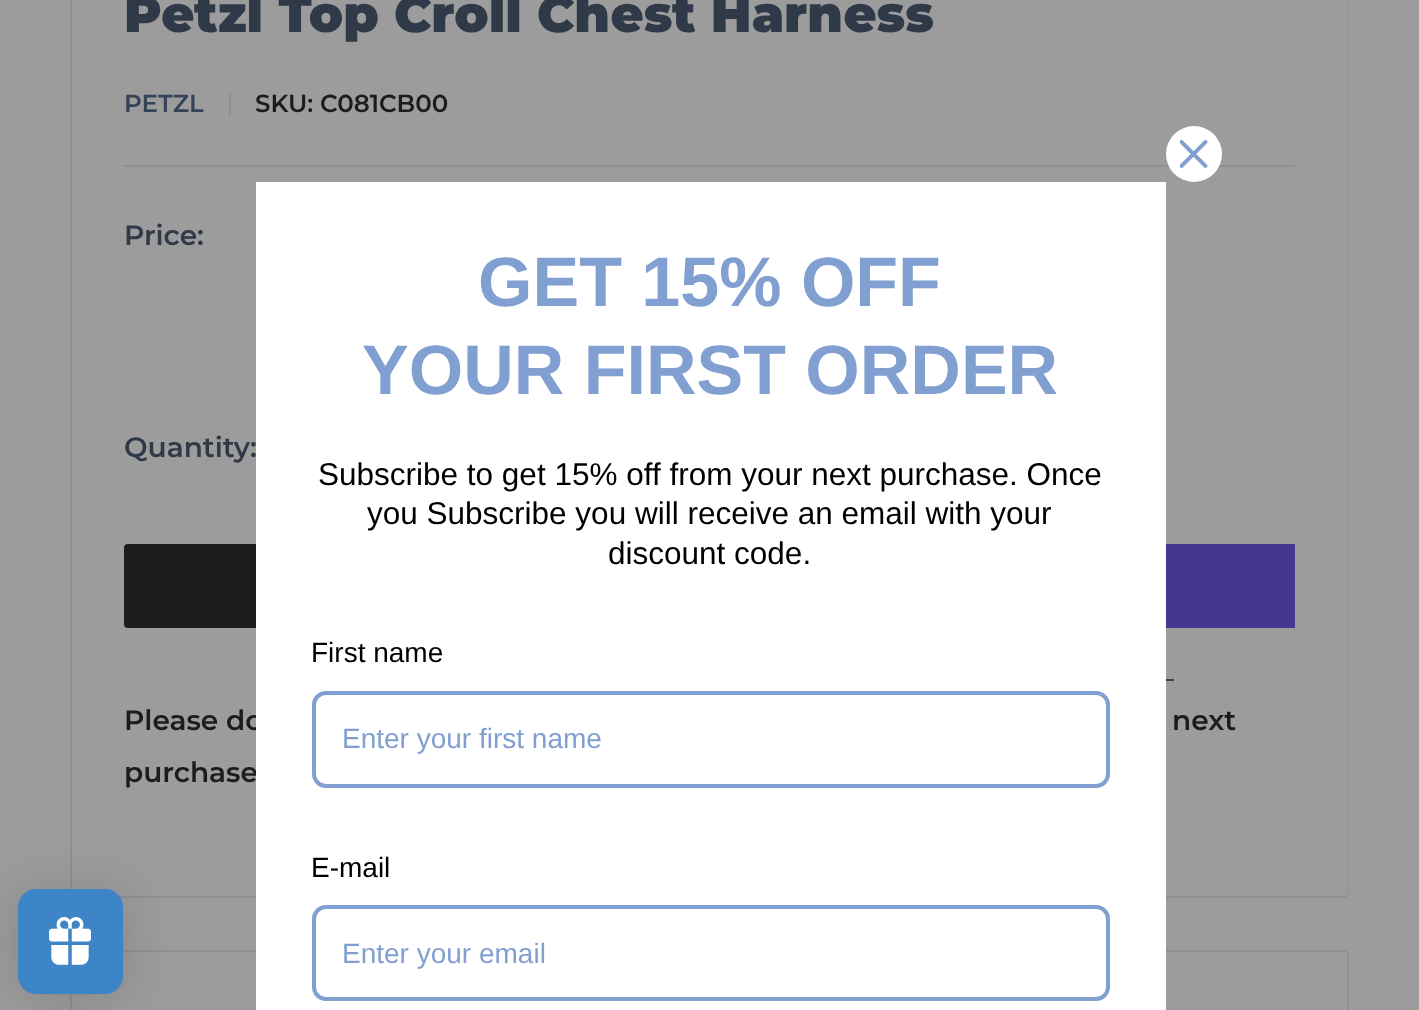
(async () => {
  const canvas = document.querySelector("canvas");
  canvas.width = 1419;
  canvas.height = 1010;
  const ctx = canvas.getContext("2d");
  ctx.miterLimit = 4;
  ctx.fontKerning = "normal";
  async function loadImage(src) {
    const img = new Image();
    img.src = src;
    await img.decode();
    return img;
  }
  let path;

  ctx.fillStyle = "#9c9c9c";
  ctx.fillRect(0, 0, 1419, 1010);
  ctx.fillStyle = "#909090";
  path = new Path2D("M75-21H1344C1347-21 1349-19 1349-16V892C1349 895 1347 898 1344 898H75C72 898 70 895 70 892V-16C70-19 72-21 75-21ZM75-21H1344C1346-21 1348-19 1348-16V892C1348 894 1346 896 1344 896H75C73 896 72 894 72 892V-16C72-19 73-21 75-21Z");
  ctx.fill(path, "evenodd");
  ctx.fillRect(229, 93, 2, 23);
  ctx.fillRect(124, 165, 1171, 2);
  ctx.fillStyle = "#1c1c1c";
  ctx.beginPath();
  ctx.roundRect(124, 544, 571, 84, 4);
  ctx.fill();
  ctx.fillStyle = "#463692";
  ctx.fillRect(1166, 544, 129, 84);
  ctx.fillStyle = "#354358";
  ctx.fillRect(1166, 679, 8, 2);
  ctx.beginPath();
  ctx.roundRect(71, 951, 1277, 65, 4);
  ctx.strokeStyle = "#909090";
  ctx.lineWidth = 2;
  ctx.stroke();
  ctx.fillStyle = "rgba(0, 0, 0, 0.15)";
  ctx.filter = "blur(26px)";
  ctx.beginPath();
  ctx.roundRect(18, 893, 105, 105, 18);
  ctx.fill();
  ctx.filter = "none";
  ctx.fillStyle = "#3d85c6";
  ctx.beginPath();
  ctx.roundRect(18, 889, 105, 105, 18);
  ctx.fill();
  ctx.drawImage(await loadImage("img/1.png"), 49, 917, 42, 48);
  ctx.fillStyle = "#ffffff";
  ctx.beginPath();
  ctx.arc(1194, 154, 28, 0, Math.PI * 2);
  ctx.fill();
  ctx.drawImage(await loadImage("img/2.png"), 1180, 140, 28, 28);
  ctx.font = "900 50.75px Montserrat";
  ctx.fillStyle = "#303947";
  ctx.fillText("Petzl Top Croll Chest Harness", 124, 32);
  ctx.font = "600 24.5px Montserrat";
  ctx.fillStyle = "#354358";
  ctx.fillText("PETZL", 124, 112);
  ctx.fillStyle = "#1c1c1c";
  ctx.fillText("SKU: C081CB00", 255, 112);
  ctx.font = "600 28px Montserrat";
  ctx.fillStyle = "#303947";
  ctx.fillText("Price:", 124, 245);
  ctx.fillText("Quantity:", 124, 457);
  ctx.fillStyle = "#1c1c1c";
  for (const [text, x, y] of [
    ["Please do", 124, 730],
    ["next", 1172, 730],
    ["purchase", 124, 782],
  ]) {
    ctx.fillText(text, x, y);
  }
  ctx.fillStyle = "#ffffff";
  ctx.fillRect(256, 182, 910, 828);
  ctx.font = "bold 70px Liberation Sans";
  ctx.fillStyle = "#819fd1";
  ctx.fillText("GET 15% OFF", 478, 306);
  ctx.fillText("YOUR FIRST ORDER", 362, 394);
  ctx.font = "31.5px Liberation Sans";
  ctx.fillStyle = "#000000";
  for (const [text, x, y] of [
    ["Subscribe to get 15% off from your next purchase. Once", 318, 485],
    ["you Subscribe you will receive an email with your", 367, 524],
    ["discount code.", 608, 564],
  ]) {
    ctx.fillText(text, x, y);
  }
  ctx.font = "28px Liberation Sans";
  ctx.fillText("First name", 311, 662);
  ctx.beginPath();
  ctx.roundRect(314, 693, 794, 93, 12);
  ctx.strokeStyle = "#819fd1";
  ctx.lineWidth = 4;
  ctx.stroke();
  ctx.fillStyle = "#819fd1";
  ctx.fillText("Enter your first name", 342, 748);
  ctx.fillStyle = "#000000";
  ctx.fillText("E-mail", 311, 877);
  ctx.beginPath();
  ctx.roundRect(314, 907, 794, 92, 12);
  ctx.stroke();
  ctx.fillStyle = "#819fd1";
  ctx.fillText("Enter your email", 342, 963);
})();
